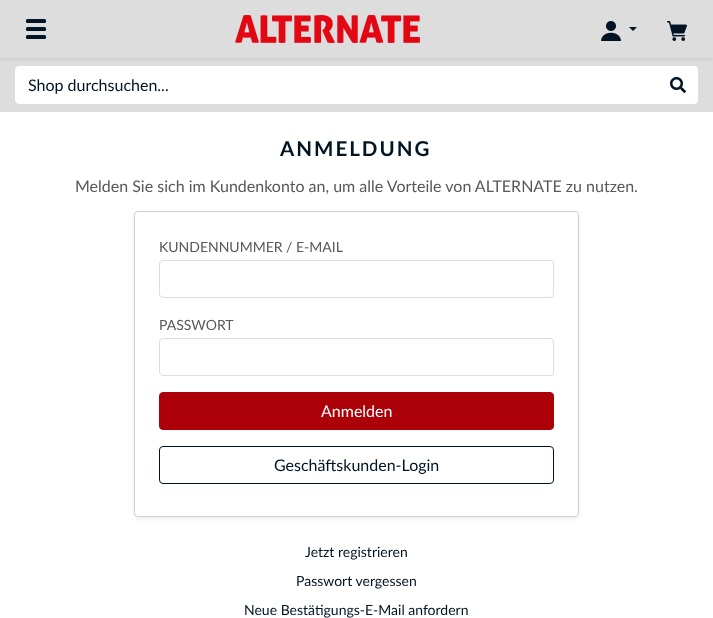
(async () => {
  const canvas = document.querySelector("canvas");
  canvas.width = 713;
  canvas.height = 618;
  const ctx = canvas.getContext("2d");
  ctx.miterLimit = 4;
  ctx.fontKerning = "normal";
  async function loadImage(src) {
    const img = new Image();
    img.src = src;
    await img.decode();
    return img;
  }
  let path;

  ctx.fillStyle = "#ffffff";
  ctx.fillRect(0, 0, 713, 618);
  ctx.fillStyle = "#dddddd";
  ctx.fillRect(0, 0, 713, 112);
  ctx.save();
  ctx.beginPath();
  ctx.rect(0, 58, 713, 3);
  ctx.clip();
  ctx.fillStyle = "rgba(0, 0, 0, 0.07)";
  ctx.filter = "blur(2px)";
  ctx.beginPath();
  ctx.rect(0, 2, 713, 58);
  ctx.fill();
  ctx.filter = "none";
  ctx.restore();
  ctx.fillStyle = "#001424";
  ctx.beginPath();
  ctx.roundRect(26, 19, 20, 4, 1.5);
  ctx.fill();
  ctx.beginPath();
  ctx.roundRect(26, 27, 20, 4, 1.5);
  ctx.fill();
  ctx.beginPath();
  ctx.roundRect(26, 35, 20, 4, 1.5);
  ctx.fill();
  ctx.drawImage(await loadImage("img/1.png"), 235, 15, 185, 28);
  ctx.drawImage(await loadImage("img/2.png"), 601, 21, 20, 20);
  path = new Path2D("M629 27H637L633 31Z");
  ctx.fill(path);
  ctx.drawImage(await loadImage("img/3.png"), 667, 21, 20, 20);
  ctx.fillStyle = "#ffffff";
  ctx.beginPath();
  ctx.roundRect(15.5, 66.5, 642, 37, [3.5, 0, 0, 3.5]);
  ctx.fill();
  ctx.strokeStyle = "#ffffff";
  ctx.stroke();
  ctx.beginPath();
  ctx.roundRect(658, 66, 40, 38, [0, 4, 4, 0]);
  ctx.fill();
  ctx.drawImage(await loadImage("img/4.png"), 670, 77, 16, 16);
  ctx.save();
  path = new Path2D("M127 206H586V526H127ZM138 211H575C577 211 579 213 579 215V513C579 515 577 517 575 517H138C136 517 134 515 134 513V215C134 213 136 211 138 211Z");
  ctx.clip(path, "evenodd");
  ctx.fillStyle = "rgba(0, 0, 0, 0.07)";
  ctx.filter = "blur(2px)";
  ctx.beginPath();
  ctx.roundRect(134, 213, 445, 306, 4);
  ctx.fill();
  ctx.filter = "none";
  ctx.restore();
  ctx.beginPath();
  ctx.roundRect(134.5, 211.5, 444, 305, 3.5);
  ctx.strokeStyle = "rgba(0, 0, 0, 0.18)";
  ctx.stroke();
  ctx.beginPath();
  ctx.roundRect(159.5, 260.5, 394, 37, 3.5);
  ctx.strokeStyle = "#dddddd";
  ctx.stroke();
  ctx.beginPath();
  ctx.roundRect(159.5, 338.5, 394, 37, 3.5);
  ctx.stroke();
  ctx.fillStyle = "#ad0109";
  ctx.beginPath();
  ctx.roundRect(159.5, 392.5, 394, 37, 3.5);
  ctx.fill();
  ctx.strokeStyle = "#ad0109";
  ctx.stroke();
  ctx.beginPath();
  ctx.roundRect(159.5, 446.5, 394, 37, 3.5);
  ctx.strokeStyle = "#001424";
  ctx.stroke();
  ctx.font = "16px Lato";
  ctx.fillStyle = "#001424";
  ctx.fillText("Shop durchsuchen...", 28, 91);
  ctx.letterSpacing = "2px";
  ctx.font = "bold 20.5px Lato";
  ctx.fillText("ANMELDUNG", 280, 156);
  ctx.letterSpacing = "0px";
  ctx.font = "16px Lato";
  ctx.fillStyle = "#585858";
  ctx.fillText("Melden Sie sich im Kundenkonto an, um alle Vorteile von ALTERNATE zu nutzen.", 75, 192);
  ctx.font = "14px Lato";
  ctx.fillText("KUNDENNUMMER / E-MAIL", 159, 252);
  ctx.fillText("PASSWORT", 159, 330);
  ctx.font = "16px Lato";
  ctx.fillStyle = "#ffffff";
  ctx.fillText("Anmelden", 321, 417);
  ctx.fillStyle = "#001424";
  ctx.fillText("Geschäftskunden-Login", 274, 471);
  ctx.font = "14px Lato";
  for (const [text, x, y] of [
    ["Jetzt registrieren", 305, 557],
    ["Passwort vergessen", 296, 586],
    ["Neue Bestätigungs-E-Mail anfordern", 244, 615],
  ]) {
    ctx.fillText(text, x, y);
  }
})();
